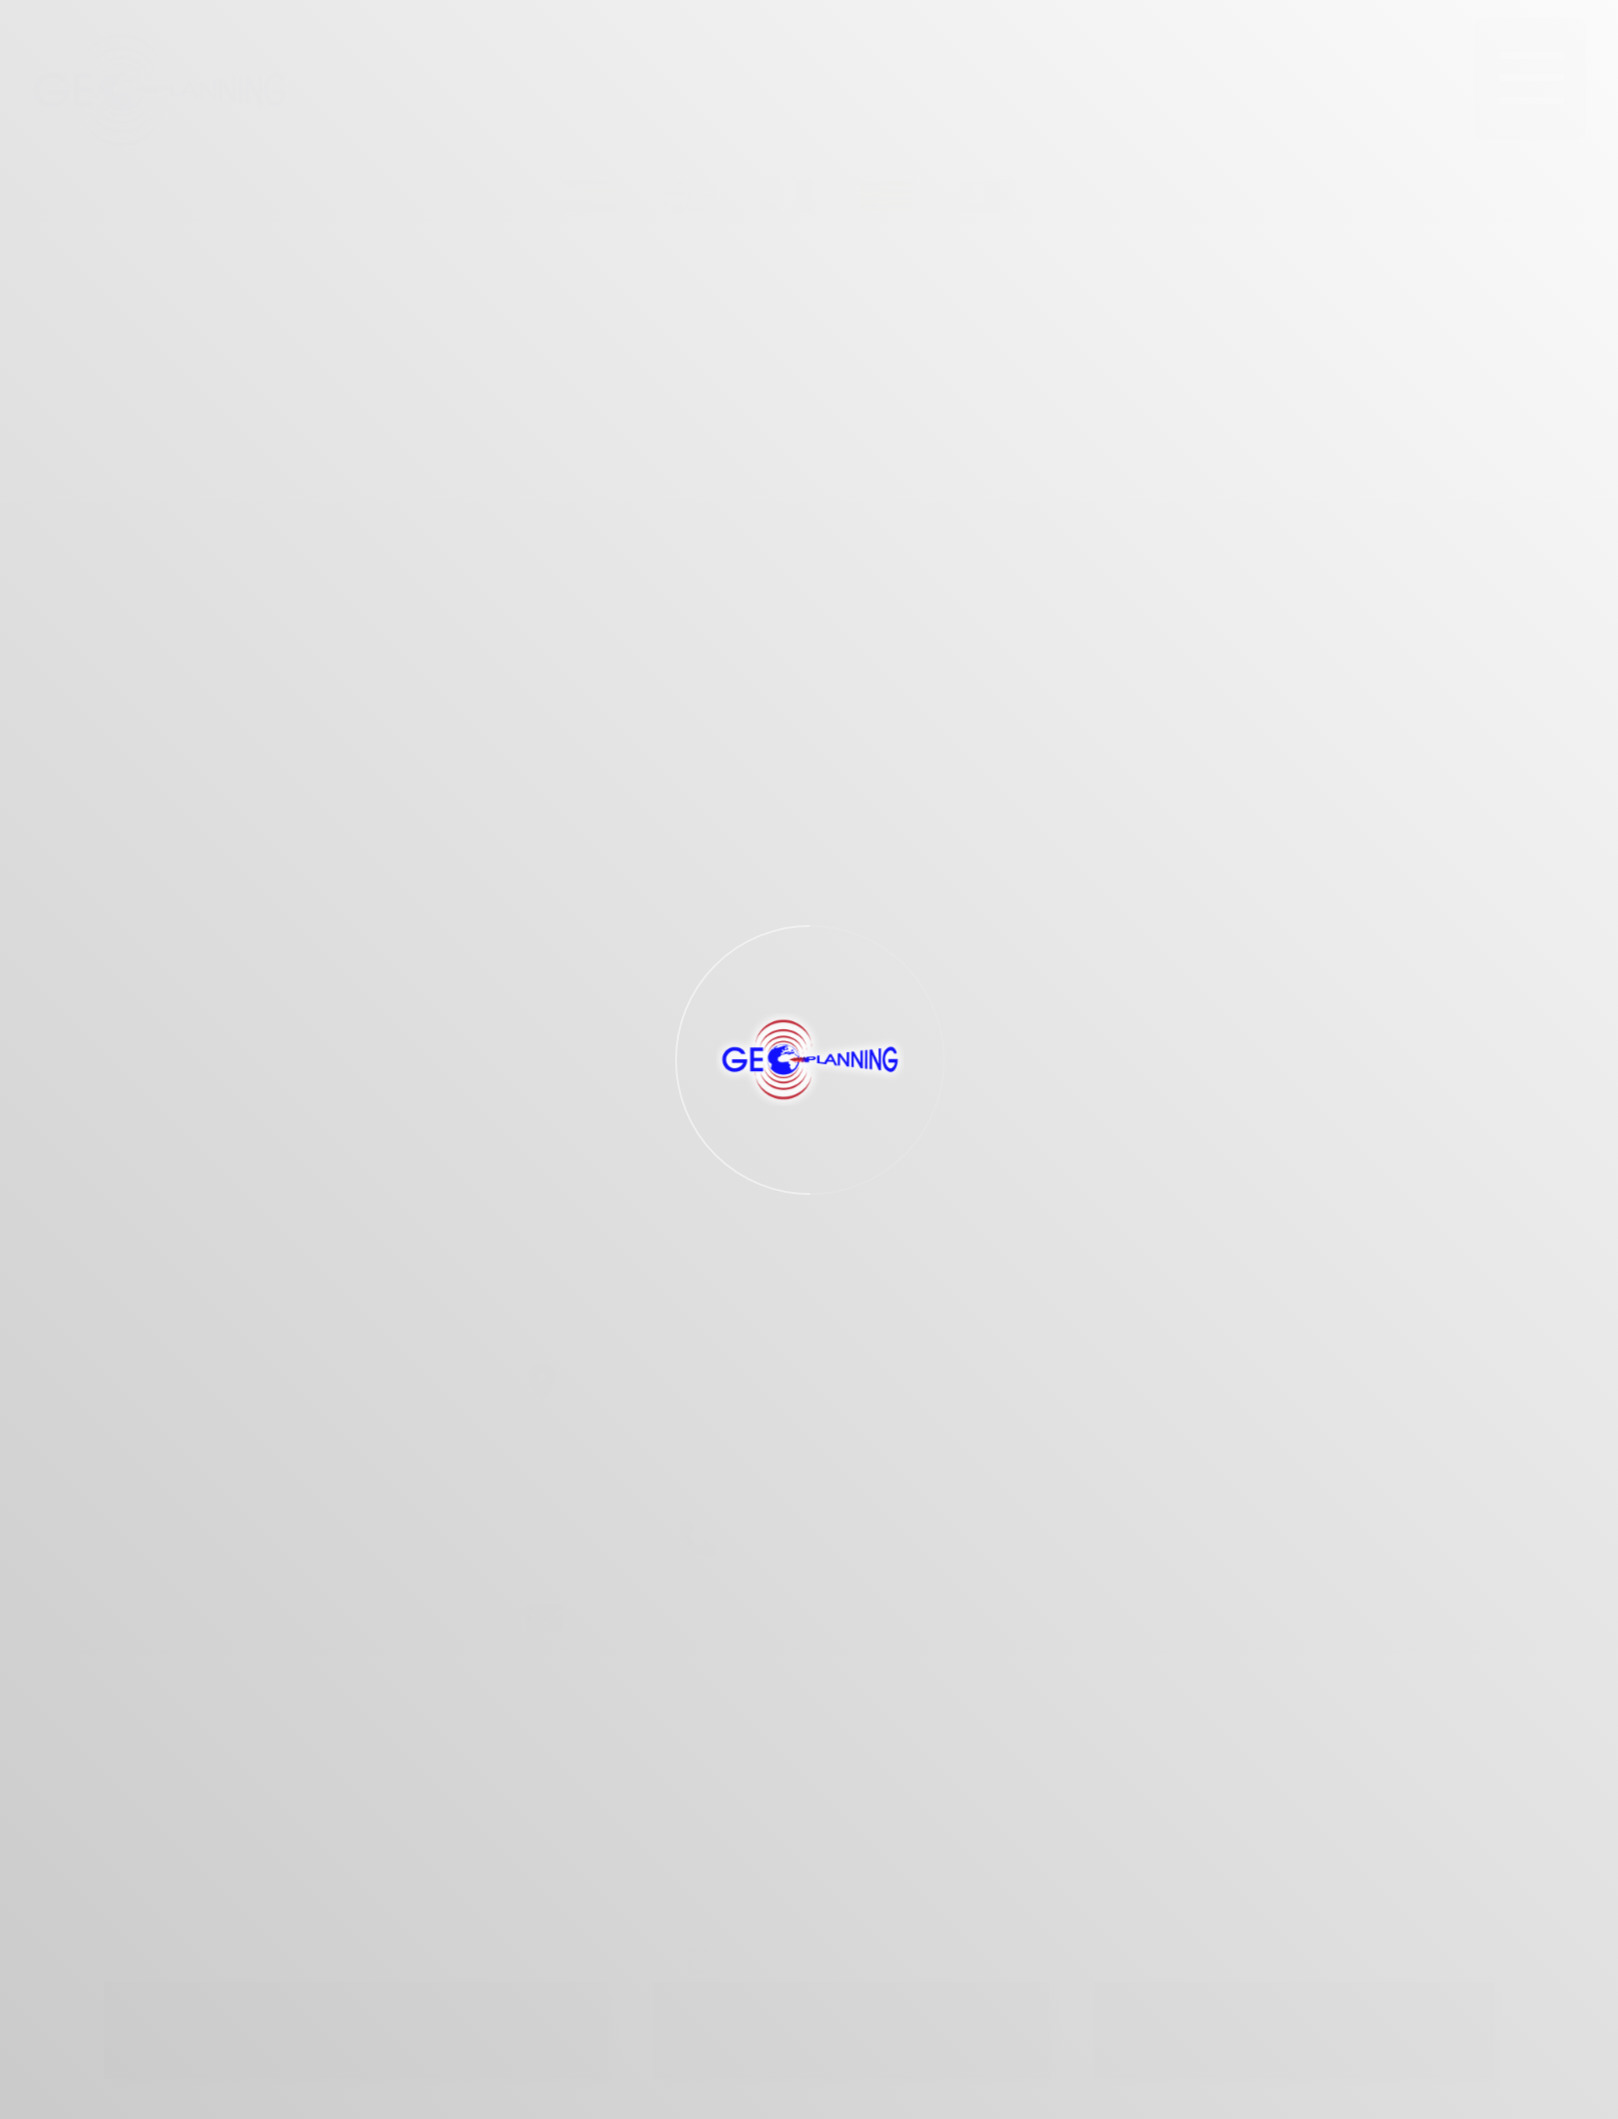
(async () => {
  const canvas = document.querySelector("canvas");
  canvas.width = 1618;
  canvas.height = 2119;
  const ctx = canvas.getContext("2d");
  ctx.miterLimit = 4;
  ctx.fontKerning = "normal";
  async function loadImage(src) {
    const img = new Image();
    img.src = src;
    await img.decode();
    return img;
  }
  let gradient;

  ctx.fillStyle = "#cfcfcf";
  ctx.fillRect(0, 0, 1618, 2119);
  ctx.fillStyle = "#cbcbcb";
  ctx.fillRect(0, 0, 1618, 223);
  ctx.drawImage(await loadImage("img/1.png"), 562, 180, 55, 32);
  ctx.drawImage(await loadImage("img/2.png"), 661, 180, 55, 32);
  ctx.drawImage(await loadImage("img/3.png"), 760, 180, 55, 32);
  ctx.drawImage(await loadImage("img/4.png"), 859, 180, 55, 32);
  ctx.drawImage(await loadImage("img/5.png"), 958, 180, 55, 32);
  ctx.drawImage(await loadImage("img/6.png"), 33, 33, 253, 114);
  ctx.fillStyle = "#cabdbe";
  ctx.beginPath();
  ctx.roundRect(1474, 18, 112, 122, 9);
  ctx.fill();
  ctx.fillStyle = "#cfcfcf";
  ctx.beginPath();
  ctx.roundRect(1499, 74, 65, 7, 2);
  ctx.fill();
  ctx.beginPath();
  ctx.roundRect(1499, 52, 65, 7, 2);
  ctx.fill();
  ctx.beginPath();
  ctx.roundRect(1499, 97, 65, 7, 2);
  ctx.fill();
  ctx.fillStyle = "#cbcbcb";
  ctx.fillRect(0, 502, 1618, 1152);
  ctx.drawImage(await loadImage("img/8.png"), 528, 1363, 28, 37);
  ctx.drawImage(await loadImage("img/9.png"), 679, 1520, 37, 37);
  ctx.drawImage(await loadImage("img/10.png"), 526, 1604, 37, 28);
  ctx.drawImage(await loadImage("img/11.png"), 688, 1947, 25, 28);
  ctx.fillStyle = "rgba(187, 187, 187, 0.75)";
  ctx.filter = "blur(4.5px)";
  ctx.beginPath();
  ctx.rect(115, 1994, 495, 87);
  ctx.fill();
  ctx.filter = "none";
  ctx.fillStyle = "#cabdbe";
  ctx.beginPath();
  ctx.rect(105, 1983, 502, 95);
  ctx.fill();
  ctx.strokeStyle = "#c8bdbe";
  ctx.lineWidth = 2;
  ctx.stroke();
  ctx.fillStyle = "rgba(187, 187, 187, 0.75)";
  ctx.filter = "blur(4.5px)";
  ctx.beginPath();
  ctx.rect(664, 1994, 387, 87);
  ctx.fill();
  ctx.filter = "none";
  ctx.fillStyle = "#cabdbe";
  ctx.beginPath();
  ctx.rect(654, 1983, 394, 95);
  ctx.fill();
  ctx.stroke();
  ctx.fillStyle = "rgba(187, 187, 187, 0.75)";
  ctx.filter = "blur(4.5px)";
  ctx.beginPath();
  ctx.rect(1105, 1994, 391, 87);
  ctx.fill();
  ctx.filter = "none";
  ctx.fillStyle = "#cabdbe";
  ctx.beginPath();
  ctx.rect(1095, 1983, 398, 95);
  ctx.fill();
  ctx.stroke();
  gradient = ctx.createLinearGradient(-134, 2004, 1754, 116);
  gradient.addColorStop(0.02, "rgba(203, 203, 203, 0.92)");
  gradient.addColorStop(1, "rgba(255, 255, 255, 0.92)");
  ctx.fillStyle = gradient;
  ctx.fillRect(0, 0, 1618, 2119);
  ctx.drawImage(await loadImage("img/7.png"), 716, 1013, 188, 93);
  ctx.beginPath();
  ctx.arc(810, 1060, 134, 0, Math.PI * 2);
  ctx.strokeStyle = "rgba(251, 251, 251, 0.1)";
  ctx.stroke();
  ctx.save();
  ctx.beginPath();
  ctx.rect(675, 925, 135, 270);
  ctx.clip();
  ctx.beginPath();
  ctx.arc(810, 1060, 134, 0, Math.PI * 2);
  ctx.strokeStyle = "rgba(251, 251, 251, 0.5)";
  ctx.stroke();
  ctx.restore();
})();
